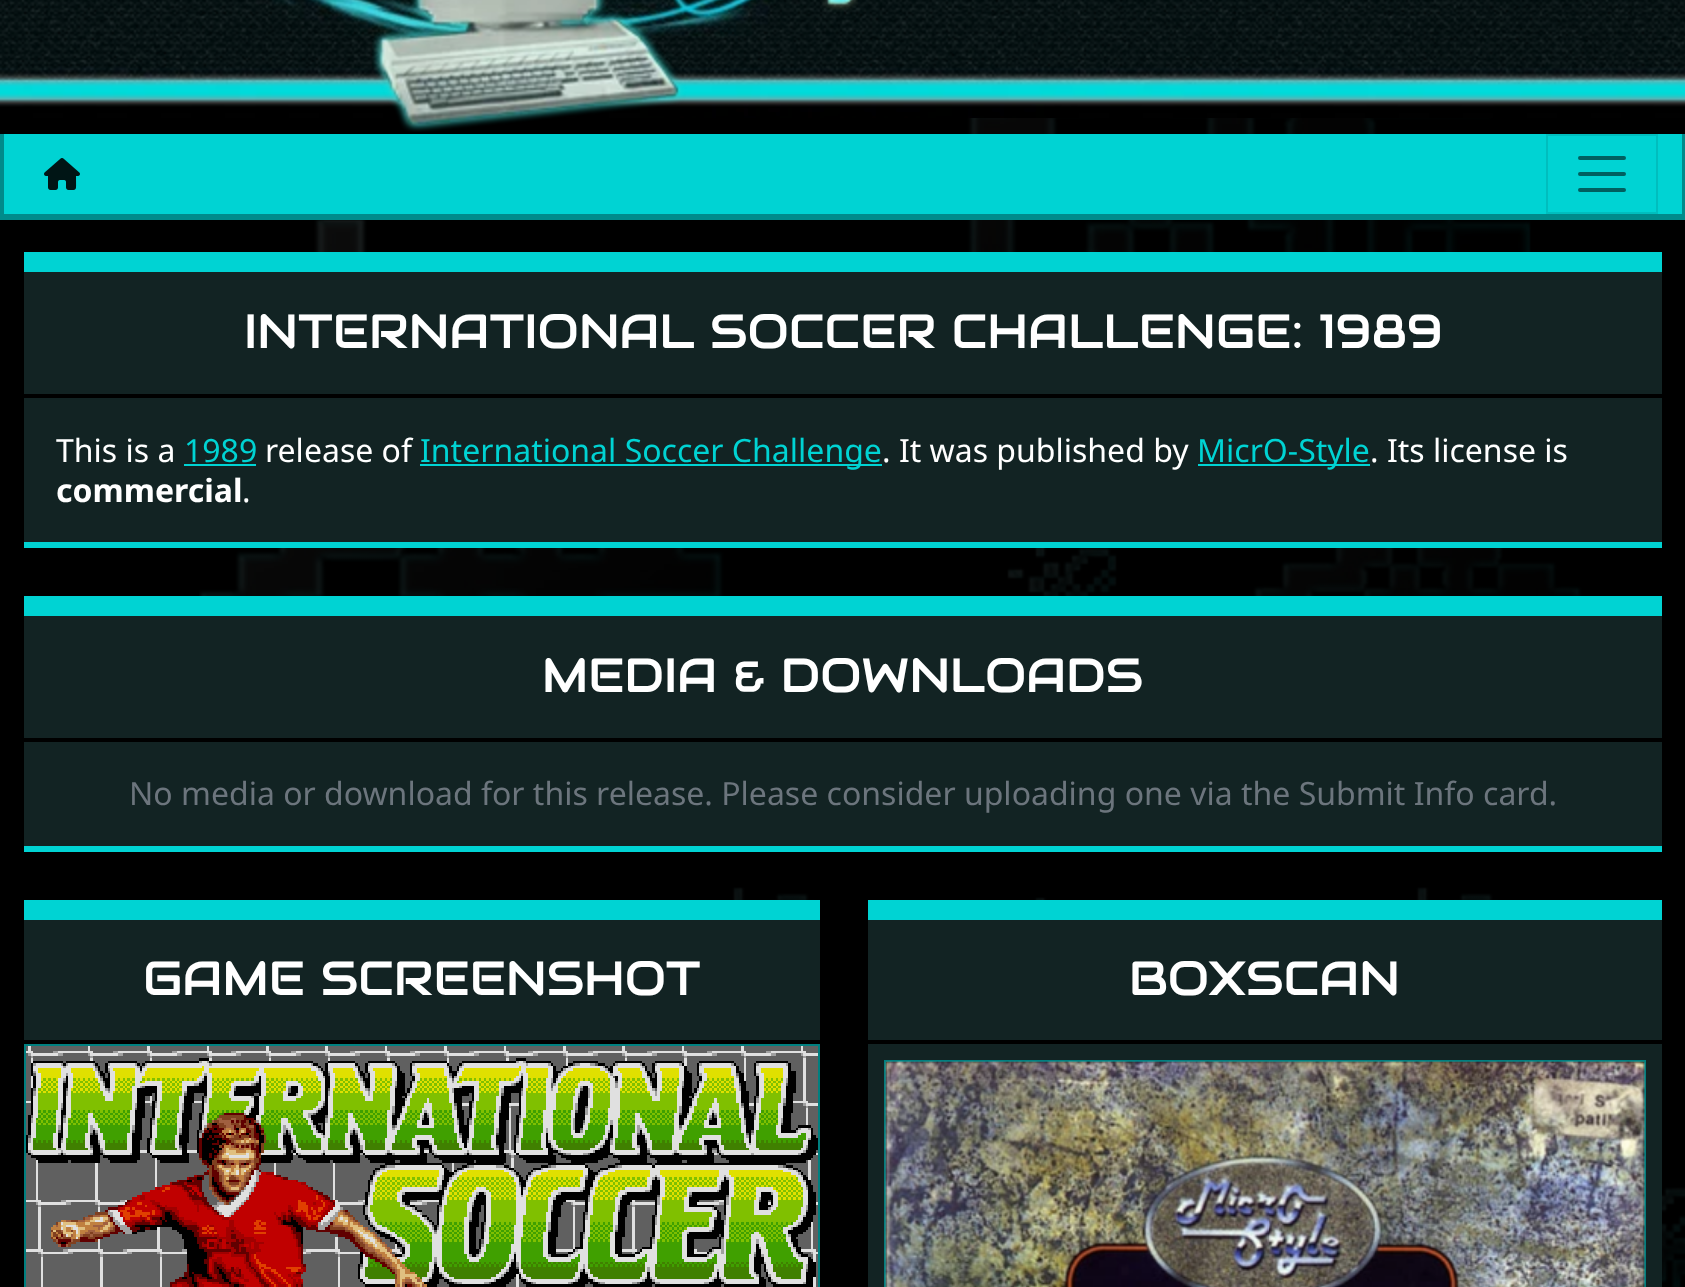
(async () => {
  const canvas = document.querySelector("canvas");
  canvas.width = 1685;
  canvas.height = 1287;
  const ctx = canvas.getContext("2d");
  ctx.miterLimit = 4;
  ctx.fontKerning = "normal";
  async function loadImage(src) {
    const img = new Image();
    img.src = src;
    await img.decode();
    return img;
  }
  let path;

  ctx.fillStyle = "#000000";
  ctx.fillRect(0, 0, 1685, 1287);
  ctx.drawImage(await loadImage("img/1.png"), 199, 118, 1486, 1169);
  ctx.drawImage(await loadImage("img/2.png"), 0, 104, 1685, 14);
  ctx.drawImage(await loadImage("img/3.png"), 0, 0, 1685, 104);
  ctx.drawImage(await loadImage("img/4.png"), 372, 0, 486, 132);
  for (const [x, y, w, h, color] of [
    [4, 134, 1678, 80, "#00d3d3"],
    [1682, 134, 3, 86, "#008b8b"],
    [0, 214, 1685, 6, "#008b8b"],
    [0, 134, 4, 86, "#008b8b"],
  ]) {
    ctx.fillStyle = color;
    ctx.fillRect(x, y, w, h);
  }
  ctx.drawImage(await loadImage("img/5.png"), 44, 158, 36, 32);
  ctx.strokeStyle = "#00bebe";
  ctx.lineWidth = 2;
  ctx.strokeRect(1547, 135, 110, 78);
  path = new Path2D("M1580 158H1624M1580 174H1624M1580 190H1624");
  ctx.strokeStyle = "#005f5f";
  ctx.lineWidth = 4;
  ctx.lineCap = "round";
  ctx.stroke(path);
  for (const [x, y, w, h, color] of [
    [24, 272, 1638, 270, "#122323"],
    [24, 252, 1638, 20, "#00d3d3"],
    [24, 542, 1638, 6, "#00d3d3"],
    [24, 394, 1638, 4, "#000000"],
    [184, 464, 72, 2, "#00d3d3"],
    [420, 464, 462, 2, "#00d3d3"],
    [1198, 464, 172, 2, "#00d3d3"],
    [24, 616, 1638, 230, "#122323"],
    [24, 596, 1638, 20, "#00d3d3"],
    [24, 846, 1638, 6, "#00d3d3"],
    [24, 738, 1638, 4, "#000000"],
    [24, 920, 796, 120, "#122323"],
    [24, 900, 796, 20, "#00d3d3"],
    [355, 1040, 299, 4, "#000000"],
  ]) {
    ctx.fillStyle = color;
    ctx.fillRect(x, y, w, h);
  }
  ctx.strokeStyle = "#007f7f";
  ctx.lineWidth = 2;
  ctx.strokeRect(25, 1045, 794, 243);
  ctx.drawImage(await loadImage("img/6.png"), 26, 1046, 792, 241);
  for (const [x, y, w, h, color] of [
    [868, 920, 794, 367, "#122323"],
    [868, 900, 794, 20, "#00d3d3"],
    [868, 1040, 794, 4, "#000000"],
  ]) {
    ctx.fillStyle = color;
    ctx.fillRect(x, y, w, h);
  }
  ctx.strokeRect(885, 1061, 760, 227);
  ctx.drawImage(await loadImage("img/7.png"), 884, 1061, 761, 226);
  ctx.font = "48px Audiowide";
  ctx.fillStyle = "#ffffff";
  ctx.fillText("INTERNATIONAL SOCCER CHALLENGE: 1989", 244, 348);
  ctx.font = "32px Noto Sans";
  ctx.fillText("This is a", 56, 462);
  ctx.fillStyle = "#00d3d3";
  ctx.fillText("1989", 184, 462);
  ctx.fillStyle = "#ffffff";
  ctx.fillText("release of", 265, 462);
  ctx.fillStyle = "#00d3d3";
  ctx.fillText("International Soccer Challenge", 420, 462);
  ctx.fillStyle = "#ffffff";
  ctx.fillText(". It was published by", 882, 462);
  ctx.fillStyle = "#00d3d3";
  ctx.fillText("MicrO-Style", 1197, 462);
  ctx.fillStyle = "#ffffff";
  ctx.fillText(". Its license is", 1370, 462);
  ctx.font = "bold 32px Noto Sans";
  ctx.fillText("commercial", 56, 502);
  ctx.font = "32px Noto Sans";
  ctx.fillText(".", 242, 502);
  ctx.font = "48px Audiowide";
  ctx.fillText("MEDIA & DOWNLOADS", 542, 692);
  ctx.font = "32px Noto Sans";
  ctx.fillStyle = "#6c757d";
  ctx.fillText("No media or download for this release. Please consider uploading one via the Submit Info card.", 129, 805);
  ctx.font = "48px Audiowide";
  ctx.fillStyle = "#ffffff";
  ctx.fillText("GAME SCREENSHOT", 143, 995);
  ctx.fillText("BOXSCAN", 1129, 995);
})();
